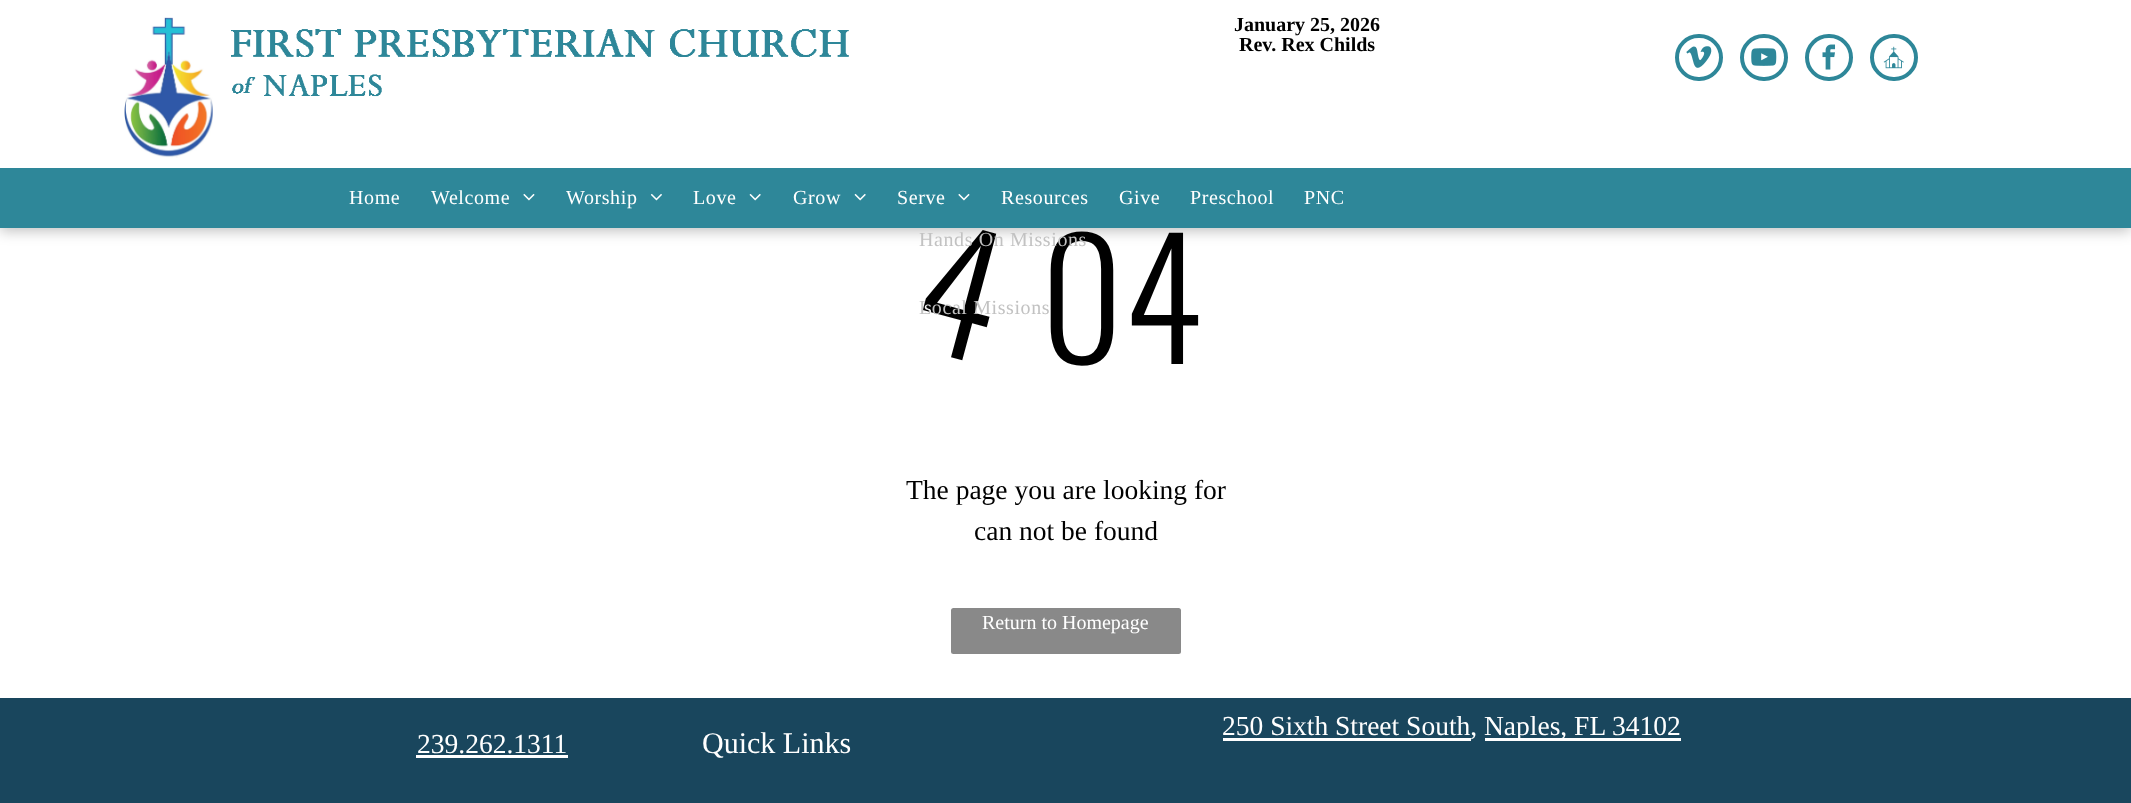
(async () => {
  const canvas = document.querySelector("canvas");
  canvas.width = 2131;
  canvas.height = 803;
  const ctx = canvas.getContext("2d");
  ctx.miterLimit = 4;
  ctx.fontKerning = "normal";
  async function loadImage(src) {
    const img = new Image();
    img.src = src;
    await img.decode();
    return img;
  }

  ctx.fillStyle = "#ffffff";
  ctx.fillRect(0, 0, 2131, 803);
  ctx.fillStyle = "rgba(0, 0, 0, 0.25)";
  ctx.filter = "blur(7px)";
  ctx.beginPath();
  ctx.rect(0, 4, 2131, 227);
  ctx.fill();
  ctx.filter = "none";
  ctx.fillStyle = "#ffffff";
  ctx.fillRect(0, 0, 2131, 168);
  ctx.drawImage(await loadImage("img/1.png"), 124, 17, 89, 141);
  ctx.drawImage(await loadImage("img/2.png"), 231, 29, 618, 68);
  ctx.beginPath();
  ctx.roundRect(1677, 36, 44, 43, 21.5);
  ctx.strokeStyle = "#2e8799";
  ctx.lineWidth = 4;
  ctx.stroke();
  ctx.drawImage(await loadImage("img/3.png"), 1686, 46, 26, 22);
  ctx.beginPath();
  ctx.roundRect(1742, 36, 44, 43, 21.5);
  ctx.stroke();
  ctx.drawImage(await loadImage("img/4.png"), 1751, 48, 26, 18);
  ctx.beginPath();
  ctx.roundRect(1807, 36, 44, 43, 21.5);
  ctx.stroke();
  ctx.drawImage(await loadImage("img/5.png"), 1822, 44, 14, 26);
  ctx.beginPath();
  ctx.roundRect(1872, 36, 44, 43, 21.5);
  ctx.stroke();
  ctx.drawImage(await loadImage("img/6.png"), 1883, 46, 21, 23);
  ctx.fillStyle = "#2e8799";
  ctx.fillRect(0, 168, 2131, 60);
  ctx.drawImage(await loadImage("img/7.png"), 523, 193, 12, 8);
  ctx.drawImage(await loadImage("img/8.png"), 650, 193, 12, 8);
  ctx.drawImage(await loadImage("img/9.png"), 749, 193, 12, 8);
  ctx.drawImage(await loadImage("img/9.png"), 854, 193, 12, 8);
  ctx.drawImage(await loadImage("img/7.png"), 958, 193, 12, 8);
  ctx.fillStyle = "#898989";
  ctx.beginPath();
  ctx.roundRect(951, 608, 230, 46, 2.5);
  ctx.fill();
  for (const [x, y, w, h, color] of [
    [0, 698, 2131, 105, "#19465d"],
    [1223, 738, 248, 3, "#ffffff"],
    [1485, 738, 196, 3, "#ffffff"],
    [416, 755, 152, 3, "#ffffff"],
  ]) {
    ctx.fillStyle = color;
    ctx.fillRect(x, y, w, h);
  }
  ctx.font = "bold 20px Liberation Serif";
  ctx.fillStyle = "#000000";
  ctx.fillText("January 25, 2026", 1234, 31);
  ctx.fillText("Rev. Rex Childs", 1239, 51);
  ctx.letterSpacing = "0.6px";
  ctx.font = "20px Liberation Serif";
  ctx.fillStyle = "#ffffff";
  for (const [text, x, y] of [
    ["Home", 349, 204],
    ["Welcome", 431, 204],
    ["Worship", 566, 204],
    ["Love", 693, 204],
    ["Grow", 793, 204],
    ["Serve", 897, 204],
    ["Resources", 1001, 204],
    ["Give", 1119, 204],
    ["Preschool", 1190, 204],
    ["PNC", 1304, 204],
  ]) {
    ctx.fillText(text, x, y);
  }
  ctx.letterSpacing = "0px";
  ctx.font = "300 162px Oswald";
  ctx.fillStyle = "#000000";
  ctx.save();
  ctx.translate(905, 345);
  ctx.rotate(15 * Math.PI / 180);
  ctx.fillText("4", 0, 0);
  ctx.restore();
  ctx.letterSpacing = "0.6px";
  ctx.font = "20px Liberation Serif";
  ctx.fillStyle = "#f2f2f2";
  ctx.fillText("s", 924, 314);
  ctx.fillStyle = "#c2c2c2";
  ctx.fillText("Local Missions", 919, 314);
  ctx.letterSpacing = "0px";
  ctx.font = "300 162px Oswald";
  ctx.fillStyle = "#000000";
  ctx.fillText("04", 1040, 364);
  ctx.letterSpacing = "0.6px";
  ctx.font = "20px Liberation Serif";
  ctx.fillStyle = "#c2c2c2";
  ctx.fillText("Hands On Missions", 919, 246);
  ctx.letterSpacing = "0px";
  ctx.font = "27.5px Liberation Serif";
  ctx.fillStyle = "#000000";
  ctx.fillText("The page you are looking for", 906, 499);
  ctx.fillText("can not be found", 974, 540);
  ctx.font = "20px Liberation Serif";
  ctx.fillStyle = "#ffffff";
  ctx.fillText("Return to Homepage", 982, 629);
  ctx.font = "27.5px Liberation Serif";
  for (const [text, x, y] of [
    ["250 Sixth Street South,", 1222, 735],
    ["Naples, FL 34102", 1484, 735],
    ["239.262.1311", 417, 753],
  ]) {
    ctx.fillText(text, x, y);
  }
  ctx.font = "30px Liberation Serif";
  ctx.fillText("Quick Links", 702, 753);
})();
